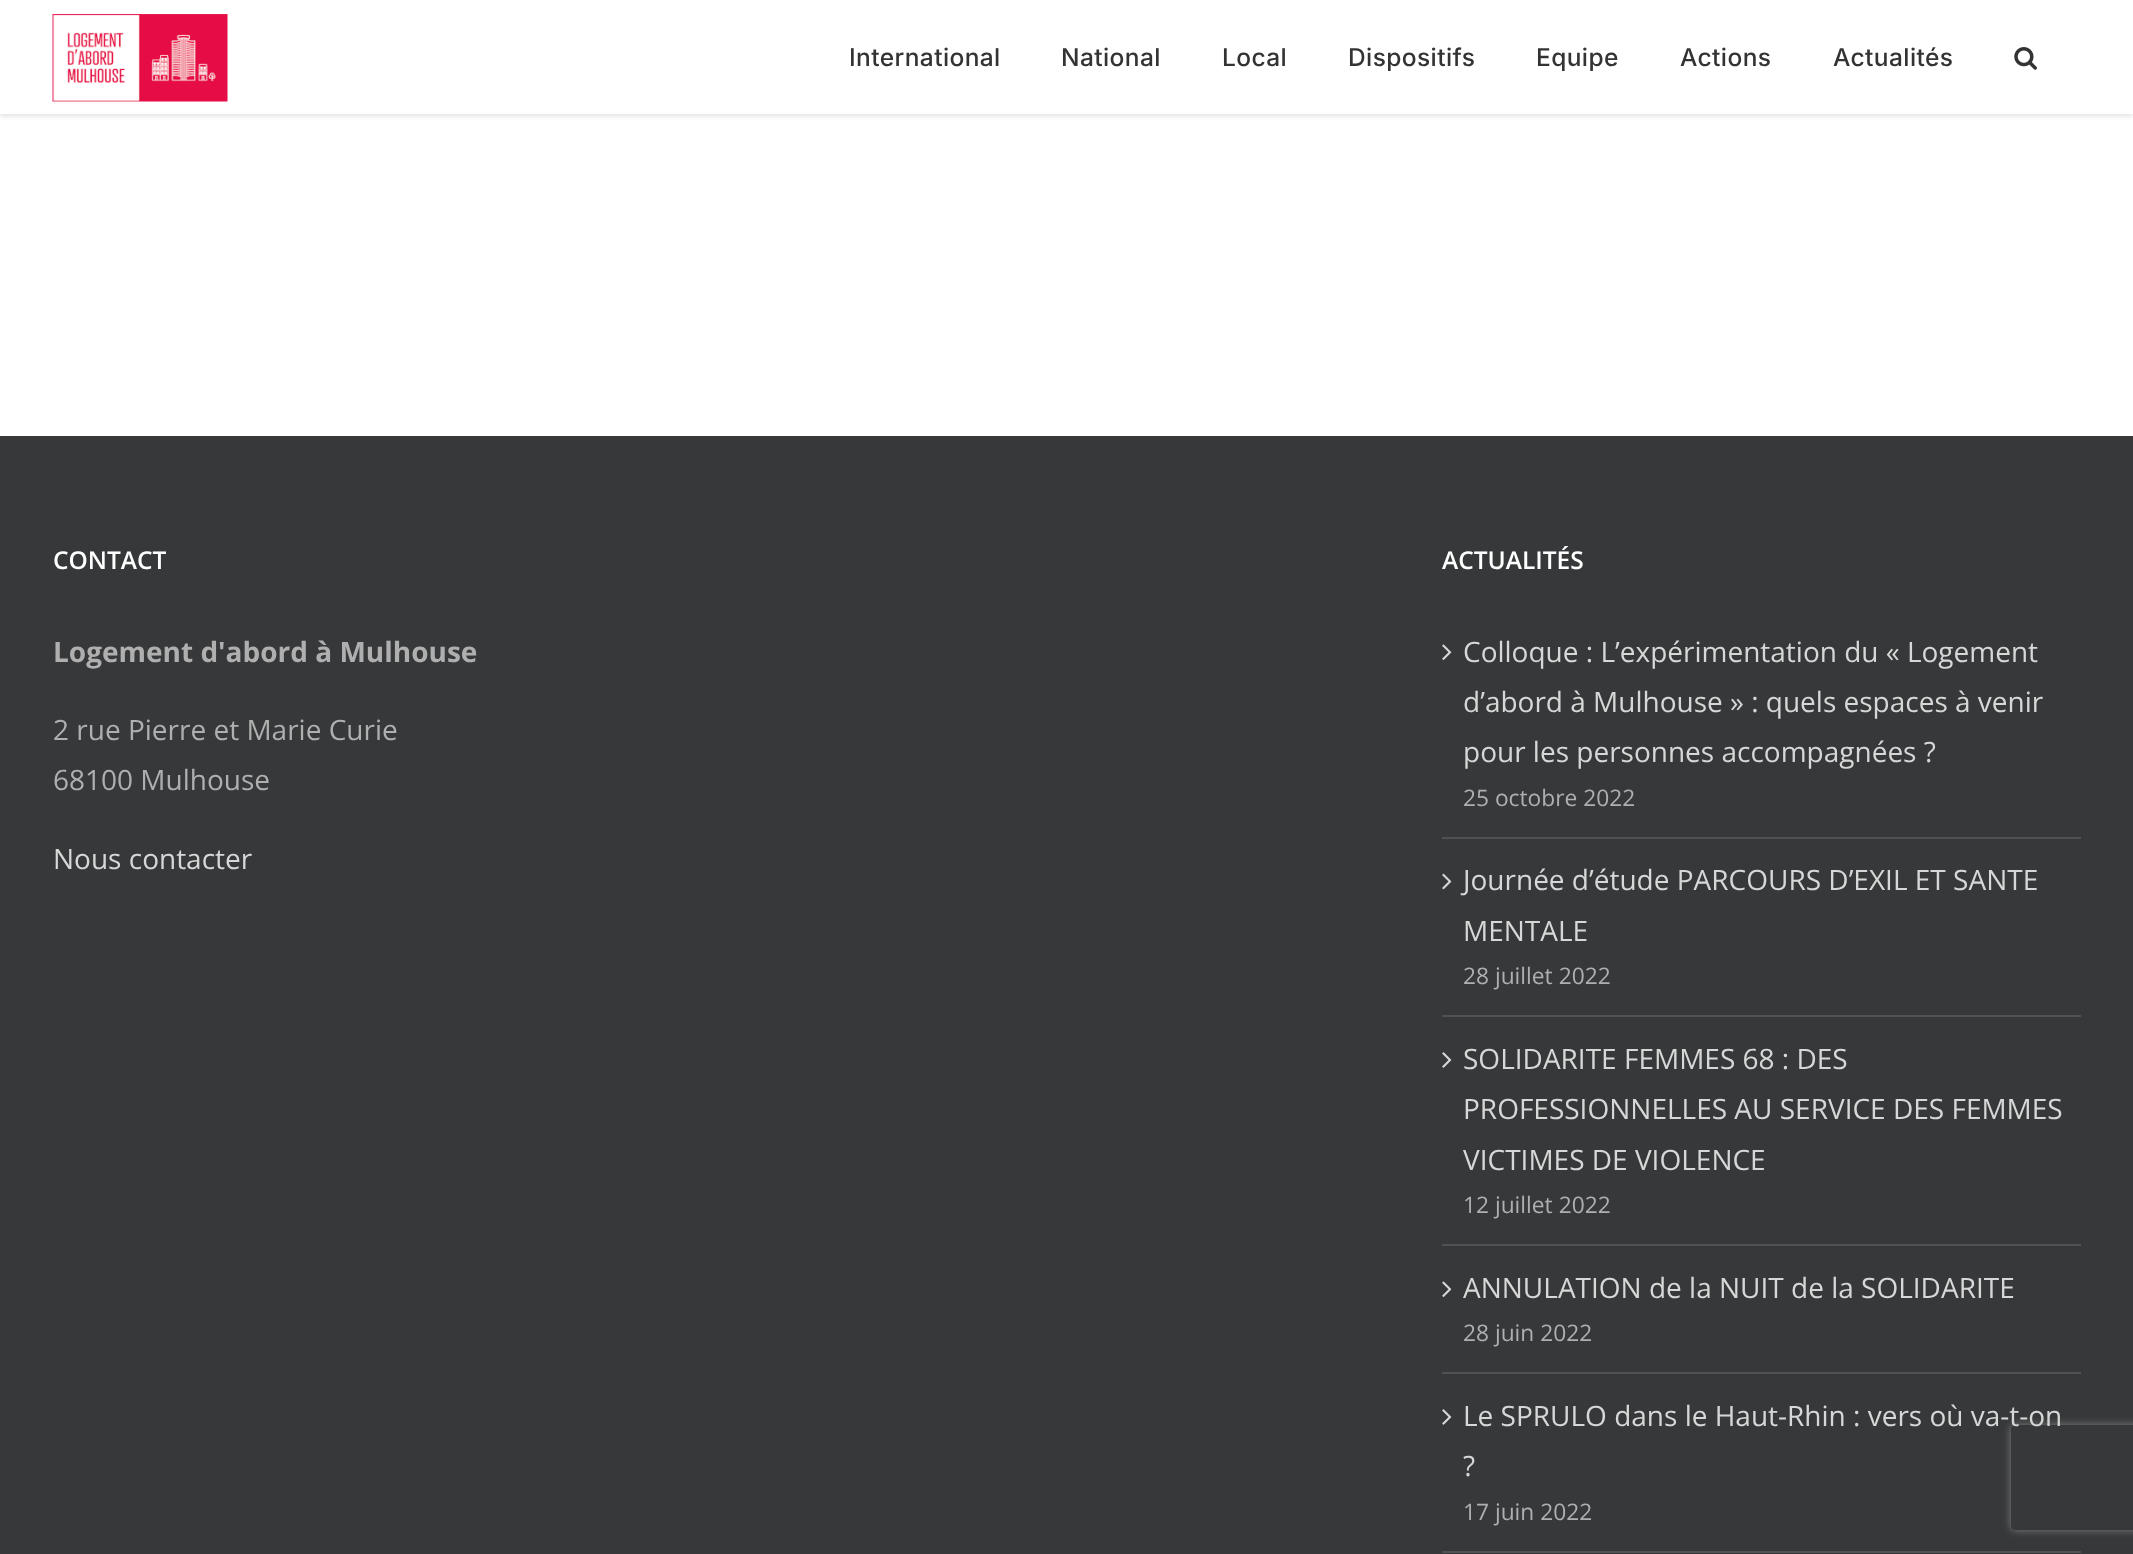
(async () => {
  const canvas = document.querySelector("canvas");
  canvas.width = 2133;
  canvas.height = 1554;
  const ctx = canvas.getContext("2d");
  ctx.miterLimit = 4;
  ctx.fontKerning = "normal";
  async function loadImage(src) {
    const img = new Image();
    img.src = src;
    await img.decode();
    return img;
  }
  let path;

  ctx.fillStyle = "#ffffff";
  ctx.fillRect(0, 0, 2133, 1554);
  ctx.fillStyle = "rgba(0, 0, 0, 0.12)";
  ctx.filter = "blur(2.5px)";
  ctx.beginPath();
  ctx.rect(0, 2, 2133, 114);
  ctx.fill();
  ctx.filter = "none";
  ctx.fillStyle = "#ffffff";
  ctx.fillRect(0, 0, 2133, 114);
  ctx.drawImage(await loadImage("img/1.png"), 52, 14, 176, 88);
  ctx.drawImage(await loadImage("img/2.png"), 2014, 47, 23, 23);
  ctx.fillStyle = "#363839";
  ctx.fillRect(0, 436, 2133, 1118);
  ctx.fillStyle = "#505152";
  ctx.fillRect(1442, 837, 639, 2);
  ctx.drawImage(await loadImage("img/3.png"), 1442, 644, 10, 16);
  ctx.fillRect(1442, 1015, 639, 2);
  ctx.drawImage(await loadImage("img/4.png"), 1442, 873, 10, 17);
  ctx.fillRect(1442, 1244, 639, 2);
  ctx.drawImage(await loadImage("img/5.png"), 1442, 1052, 10, 16);
  ctx.fillRect(1442, 1372, 639, 2);
  ctx.drawImage(await loadImage("img/3.png"), 1442, 1281, 10, 16);
  ctx.fillRect(1442, 1551, 639, 2);
  ctx.drawImage(await loadImage("img/5.png"), 1442, 1409, 10, 16);
  ctx.save();
  path = new Path2D("M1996 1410H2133V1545H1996ZM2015 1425H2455C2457 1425 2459 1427 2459 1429V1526C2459 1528 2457 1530 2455 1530H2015C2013 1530 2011 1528 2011 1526V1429C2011 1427 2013 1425 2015 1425Z");
  ctx.clip(path, "evenodd");
  ctx.fillStyle = "#808080";
  ctx.filter = "blur(4.5px)";
  ctx.beginPath();
  ctx.roundRect(2011, 1425, 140, 105, 4);
  ctx.fill();
  ctx.filter = "none";
  ctx.restore();
  ctx.letterSpacing = "0.4px";
  ctx.font = "500 24.5px Inter";
  ctx.fillStyle = "#333333";
  for (const [text, x, y] of [
    ["International", 849, 66],
    ["National", 1061, 66],
    ["Local", 1222, 66],
    ["Dispositifs", 1348, 66],
    ["Equipe", 1536, 66],
    ["Actions", 1680, 66],
    ["Actualités", 1833, 66],
  ]) {
    ctx.fillText(text, x, y);
  }
  ctx.letterSpacing = "0px";
  ctx.font = "600 24.5px Open Sans";
  ctx.fillStyle = "#ffffff";
  ctx.fillText("CONTACT", 53, 569);
  ctx.font = "bold 28px Open Sans";
  ctx.fillStyle = "#afafb0";
  ctx.fillText("Logement d'abord à Mulhouse", 53, 662);
  ctx.font = "28px Open Sans";
  ctx.fillText("2 rue Pierre et Marie Curie", 53, 740);
  ctx.fillText("68100 Mulhouse", 53, 790);
  ctx.fillStyle = "#d7d7d7";
  ctx.fillText("Nous contacter", 53, 869);
  ctx.font = "600 24.5px Open Sans";
  ctx.fillStyle = "#ffffff";
  ctx.fillText("ACTUALITÉS", 1442, 569);
  ctx.font = "28px Open Sans";
  ctx.fillStyle = "#d7d7d7";
  for (const [text, x, y] of [
    ["Colloque : L’expérimentation du « Logement", 1463, 662],
    ["d’abord à Mulhouse » : quels espaces à venir", 1463, 712],
    ["pour les personnes accompagnées ?", 1463, 762],
  ]) {
    ctx.fillText(text, x, y);
  }
  ctx.font = "22.75px Open Sans";
  ctx.fillStyle = "#afafb0";
  ctx.fillText("25 octobre 2022", 1463, 806);
  ctx.font = "28px Open Sans";
  ctx.fillStyle = "#d7d7d7";
  ctx.fillText("Journée d’étude PARCOURS D’EXIL ET SANTE", 1463, 890);
  ctx.fillText("MENTALE", 1463, 941);
  ctx.font = "22.75px Open Sans";
  ctx.fillStyle = "#afafb0";
  ctx.fillText("28 juillet 2022", 1463, 984);
  ctx.font = "28px Open Sans";
  ctx.fillStyle = "#d7d7d7";
  for (const [text, x, y] of [
    ["SOLIDARITE FEMMES 68 : DES", 1463, 1069],
    ["PROFESSIONNELLES AU SERVICE DES FEMMES", 1463, 1119],
    ["VICTIMES DE VIOLENCE", 1463, 1170],
  ]) {
    ctx.fillText(text, x, y);
  }
  ctx.font = "22.75px Open Sans";
  ctx.fillStyle = "#afafb0";
  ctx.fillText("12 juillet 2022", 1463, 1213);
  ctx.font = "28px Open Sans";
  ctx.fillStyle = "#d7d7d7";
  ctx.fillText("ANNULATION de la NUIT de la SOLIDARITE", 1463, 1298);
  ctx.font = "22.75px Open Sans";
  ctx.fillStyle = "#afafb0";
  ctx.fillText("28 juin 2022", 1463, 1341);
  ctx.font = "28px Open Sans";
  ctx.fillStyle = "#d7d7d7";
  ctx.fillText("Le SPRULO dans le Haut-Rhin : vers où va-t-on", 1463, 1426);
  ctx.fillText("?", 1463, 1476);
  ctx.font = "22.75px Open Sans";
  ctx.fillStyle = "#afafb0";
  ctx.fillText("17 juin 2022", 1463, 1520);
})();
